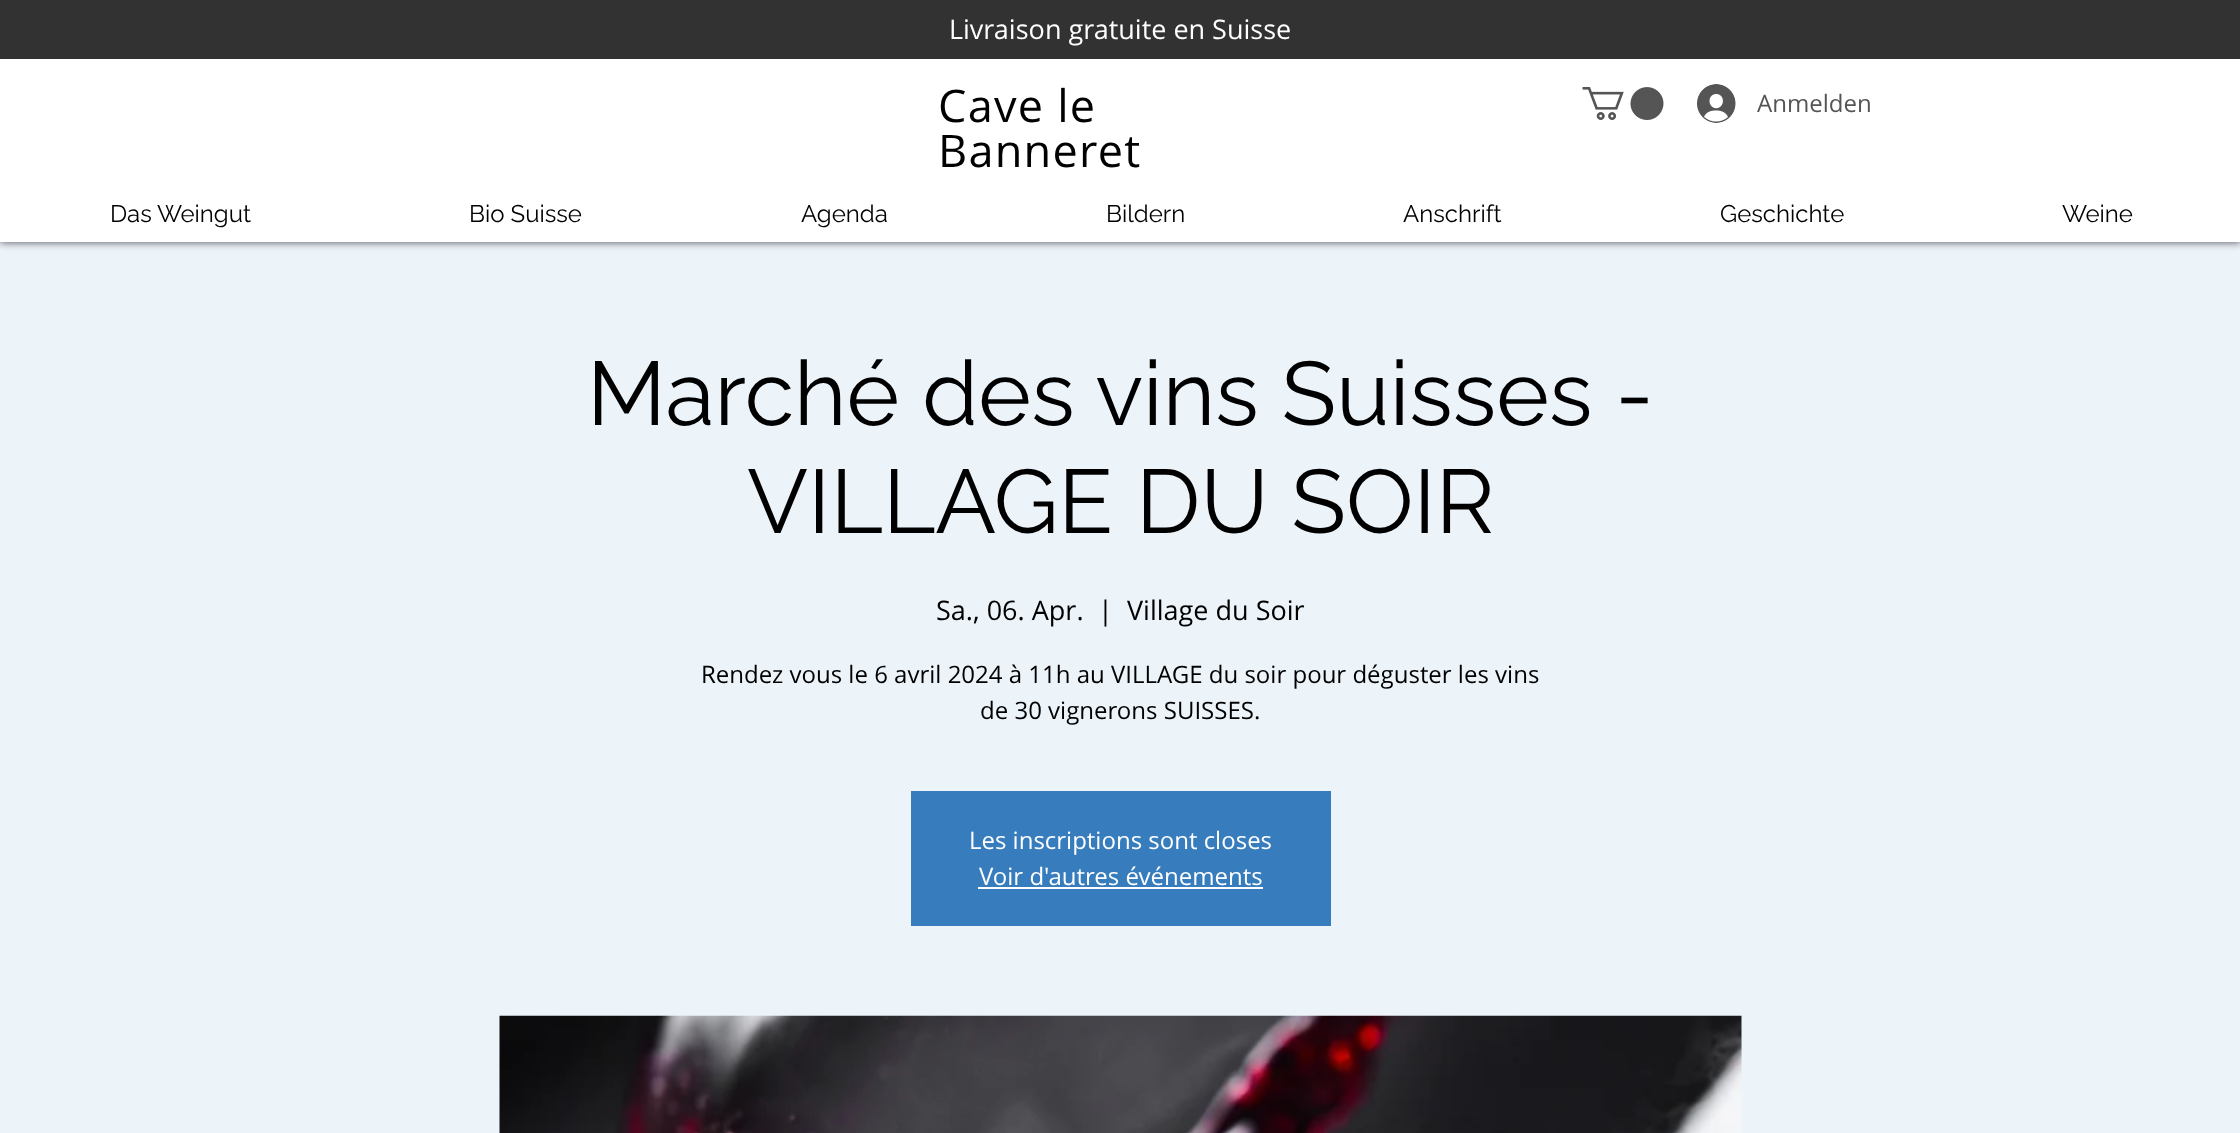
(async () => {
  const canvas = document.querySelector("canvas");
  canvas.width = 2240;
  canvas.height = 1133;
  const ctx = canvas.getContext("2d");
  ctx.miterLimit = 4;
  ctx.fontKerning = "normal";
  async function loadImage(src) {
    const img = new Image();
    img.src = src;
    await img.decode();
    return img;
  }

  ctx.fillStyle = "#ecf3f9";
  ctx.fillRect(0, 0, 2240, 1133);
  ctx.fillStyle = "rgba(0, 0, 0, 0.7)";
  ctx.filter = "blur(4px)";
  ctx.beginPath();
  ctx.rect(0, 0, 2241, 242);
  ctx.fill();
  ctx.filter = "none";
  ctx.fillStyle = "#ffffff";
  ctx.fillRect(0, 59, 2240, 183);
  ctx.fillStyle = "#323232";
  ctx.fillRect(0, 0, 2240, 59);
  ctx.drawImage(await loadImage("img/1.png"), 1582, 87, 82, 33);
  ctx.drawImage(await loadImage("img/2.png"), 1697, 84, 39, 39);
  ctx.fillStyle = "#377dbd";
  ctx.fillRect(911, 791, 420, 135);
  ctx.fillStyle = "#ffffff";
  ctx.fillRect(978, 887, 285, 2);
  ctx.drawImage(await loadImage("img/3.png"), 499, 1015, 1243, 118);
  ctx.font = "27px Open Sans";
  ctx.fillText("Livraison gratuite en Suisse", 949, 39);
  ctx.letterSpacing = "1.25px";
  ctx.font = "45px Open Sans";
  ctx.fillStyle = "#000000";
  ctx.fillText("Cave le", 938, 122);
  ctx.fillText("Banneret", 938, 167);
  ctx.letterSpacing = "0px";
  ctx.font = "24px Open Sans";
  ctx.fillStyle = "#555555";
  ctx.fillText("Anmelden", 1757, 112);
  ctx.font = "24px Raleway";
  ctx.fillStyle = "#000000";
  for (const [text, x, y] of [
    ["Das Weingut", 110, 222],
    ["Bio Suisse", 469, 222],
    ["Agenda", 801, 222],
    ["Bildern", 1106, 222],
    ["Anschrift", 1403, 222],
    ["Geschichte", 1720, 222],
    ["Weine", 2062, 222],
  ]) {
    ctx.fillText(text, x, y);
  }
  ctx.font = "90px Raleway";
  ctx.fillText("Marché des vins Suisses -", 587, 425);
  ctx.fillText("VILLAGE DU SOIR", 747, 533);
  ctx.font = "27px Open Sans";
  for (const [text, x, y] of [
    ["Sa., 06. Apr.", 936, 620],
    ["|", 1098, 620],
    ["Village du Soir", 1127, 620],
  ]) {
    ctx.fillText(text, x, y);
  }
  ctx.font = "24px Open Sans";
  ctx.fillText("Rendez vous le 6 avril 2024 à 11h au VILLAGE du soir pour déguster les vins", 701, 683);
  ctx.fillText("de 30 vignerons SUISSES.", 980, 719);
  ctx.fillStyle = "#ffffff";
  ctx.fillText("Les inscriptions sont closes", 969, 849);
  ctx.fillText("Voir d'autres événements", 979, 885);
})();
